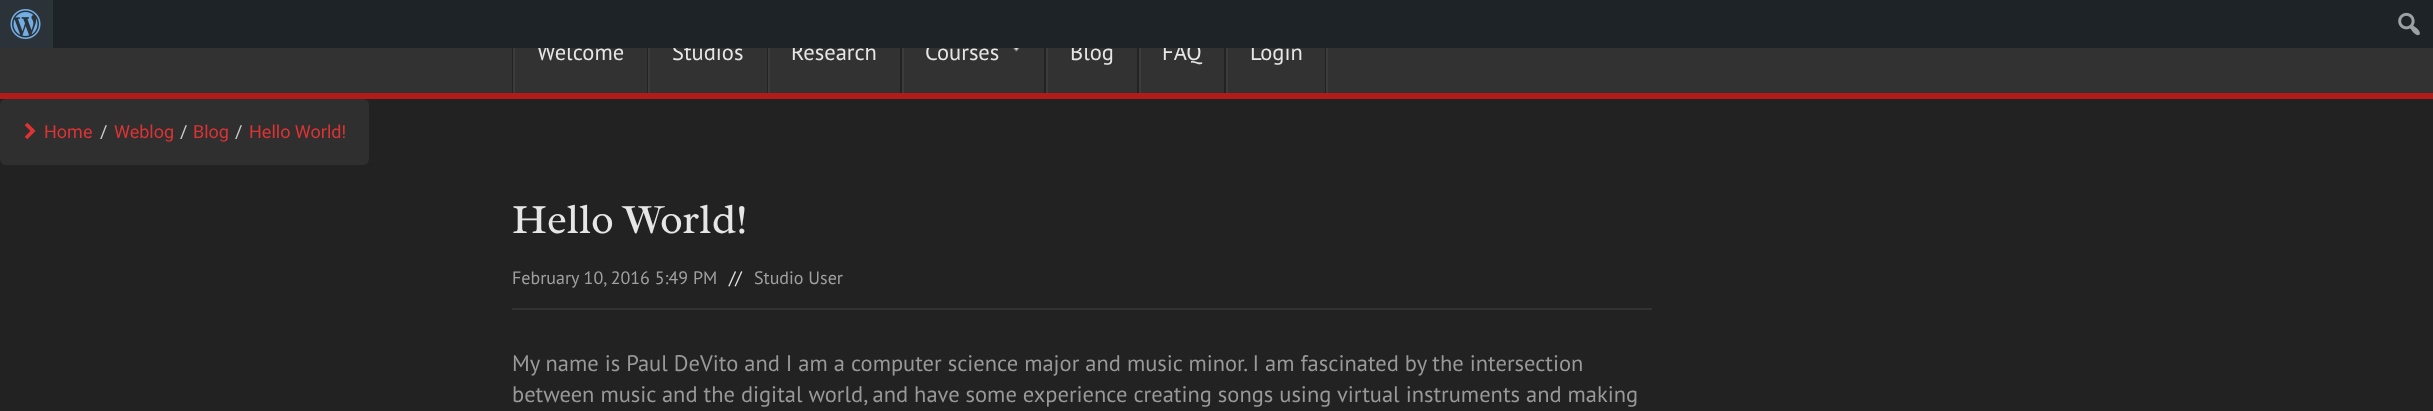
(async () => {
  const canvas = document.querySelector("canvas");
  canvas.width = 2433;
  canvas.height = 411;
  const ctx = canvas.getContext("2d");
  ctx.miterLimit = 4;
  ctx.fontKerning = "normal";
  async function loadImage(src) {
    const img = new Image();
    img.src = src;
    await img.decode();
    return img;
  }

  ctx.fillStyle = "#222222";
  ctx.fillRect(0, 0, 2433, 411);
  ctx.fillStyle = "#2c3338";
  ctx.fillRect(0, 0, 53, 48);
  ctx.drawImage(await loadImage("img/1.png"), 10, 9, 31, 30);
  for (const [x, y, w, h, color] of [
    [0, 48, 2433, 45, "#323232"],
    [0, 93, 2433, 6, "#b31b1b"],
    [512, 48, 1, 45, "#232323"],
    [647, 48, 1, 45, "#232323"],
    [513, 48, 2, 45, "#3c3c3c"],
    [767, 48, 1, 45, "#232323"],
    [648, 48, 2, 45, "#3c3c3c"],
    [900, 48, 2, 45, "#232323"],
    [768, 48, 2, 45, "#3c3c3c"],
    [1044, 48, 2, 45, "#232323"],
    [902, 48, 2, 45, "#3c3c3c"],
  ]) {
    ctx.fillStyle = color;
    ctx.fillRect(x, y, w, h);
  }
  ctx.drawImage(await loadImage("img/3.png"), 1012, 48, 8, 4);
  for (const [x, y, w, h, color] of [
    [1137, 48, 2, 45, "#232323"],
    [1046, 48, 2, 45, "#3c3c3c"],
    [1224, 48, 2, 45, "#232323"],
    [1139, 48, 2, 45, "#3c3c3c"],
    [1325, 48, 1, 45, "#232323"],
    [1226, 48, 2, 45, "#3c3c3c"],
    [1326, 48, 2, 45, "#3c3c3c"],
  ]) {
    ctx.fillStyle = color;
    ctx.fillRect(x, y, w, h);
  }
  ctx.fillStyle = "#2f2f30";
  ctx.beginPath();
  ctx.roundRect(0, 99, 369, 66, 6);
  ctx.fill();
  ctx.drawImage(await loadImage("img/4.png"), 24, 122, 12, 17);
  ctx.fillStyle = "#323232";
  ctx.fillRect(512, 308, 1140, 2);
  ctx.font = "22.5px PT Sans";
  ctx.fillStyle = "#e6e6e6";
  for (const [text, x, y] of [
    ["Welcome", 537, 60],
    ["Studios", 672, 60],
    ["Research", 791, 60],
    ["Courses", 925, 60],
    ["Blog", 1070, 60],
    ["FAQ", 1162, 60],
    ["Login", 1250, 60],
  ]) {
    ctx.fillText(text, x, y);
  }
  ctx.fillStyle = "#1d2327";
  ctx.fillRect(53, 0, 2380, 48);
  ctx.drawImage(await loadImage("img/2.png"), 2398, 12, 22, 24);
  ctx.font = "18px Roboto";
  ctx.fillStyle = "#dd3333";
  ctx.fillText("Home", 44, 138);
  ctx.fillStyle = "#cccccc";
  ctx.fillText("/", 100, 138);
  ctx.fillStyle = "#dd3333";
  ctx.fillText("Weblog", 114, 138);
  ctx.fillStyle = "#cccccc";
  ctx.fillText("/", 180, 138);
  ctx.fillStyle = "#dd3333";
  ctx.fillText("Blog", 193, 138);
  ctx.fillStyle = "#cccccc";
  ctx.fillText("/", 235, 138);
  ctx.fillStyle = "#dd3333";
  ctx.fillText("Hello World!", 249, 138);
  ctx.font = "42px Radley";
  ctx.fillStyle = "#e6e6e6";
  ctx.fillText("Hello World!", 512, 233);
  ctx.font = "18px PT Sans";
  ctx.fillStyle = "#a0a0a0";
  ctx.fillText("February 10, 2016 5:49 PM", 512, 284);
  ctx.fillStyle = "#e6e6e6";
  ctx.fillText("//", 729, 284);
  ctx.fillStyle = "#a0a0a0";
  ctx.fillText("Studio User", 754, 284);
  ctx.font = "22.5px PT Sans";
  ctx.fillStyle = "#999999";
  ctx.fillText("My name is Paul DeVito and I am a computer science major and music minor. I am fascinated by the intersection", 512, 371);
  ctx.fillText("between music and the digital world, and have some experience creating songs using virtual instruments and making", 512, 402);
})();
